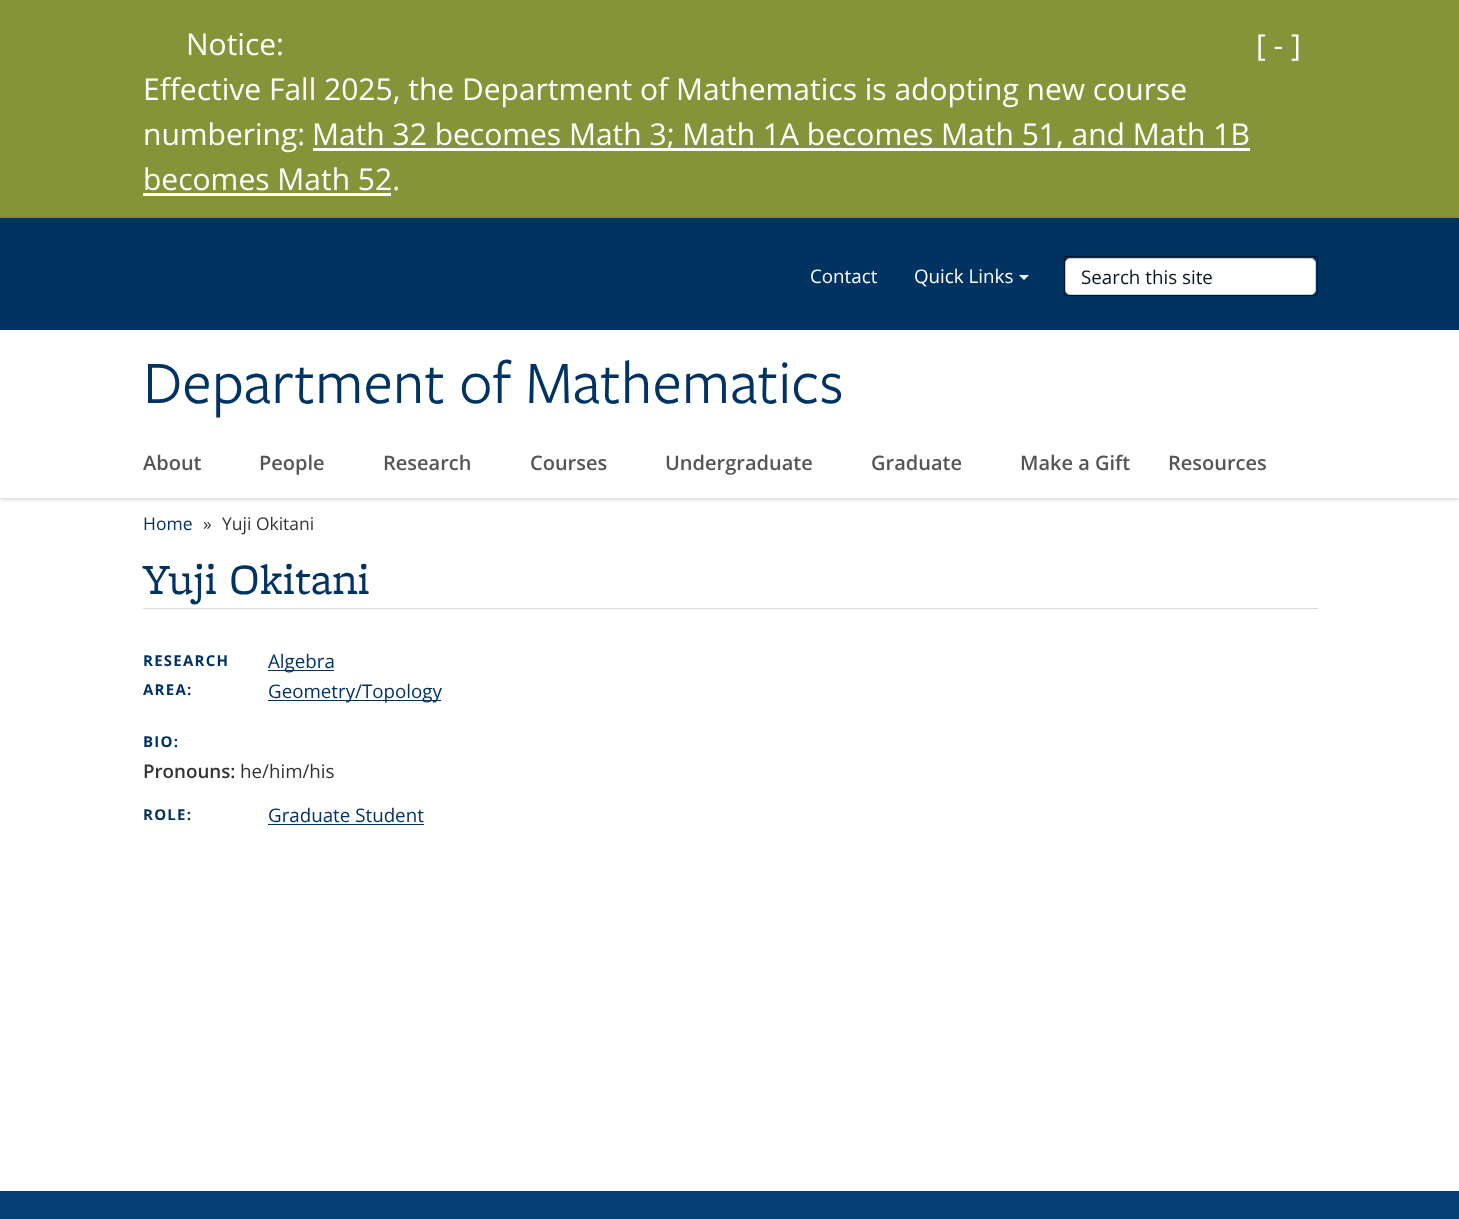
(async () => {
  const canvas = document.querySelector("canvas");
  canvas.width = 1459;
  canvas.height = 1219;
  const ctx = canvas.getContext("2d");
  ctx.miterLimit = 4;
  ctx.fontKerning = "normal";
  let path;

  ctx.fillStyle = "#ffffff";
  ctx.fillRect(0, 0, 1459, 1219);
  for (const [x, y, w, h, color] of [
    [0, 0, 1459, 218, "#859438"],
    [313, 148, 937, 3, "#ffffff"],
    [143, 193, 248, 3, "#ffffff"],
  ]) {
    ctx.fillStyle = color;
    ctx.fillRect(x, y, w, h);
  }
  ctx.save();
  path = new Path2D("M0 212H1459V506H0ZM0 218H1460V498H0Z");
  ctx.clip(path, "evenodd");
  ctx.fillStyle = "rgba(0, 0, 0, 0.2)";
  ctx.filter = "blur(2px)";
  ctx.beginPath();
  ctx.rect(0, 219, 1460, 280);
  ctx.fill();
  ctx.filter = "none";
  ctx.restore();
  ctx.fillStyle = "#003262";
  ctx.fillRect(0, 218, 1459, 112);
  ctx.fillStyle = "#ffffff";
  path = new Path2D("M1019 275H1029L1024 280Z");
  ctx.fill(path);
  ctx.strokeStyle = "#081521";
  ctx.strokeRect(1064.5, 256.5, 253, 39);
  ctx.beginPath();
  ctx.roundRect(1065.5, 258.5, 250, 36, 4.5);
  ctx.fill();
  ctx.strokeStyle = "#cccccc";
  ctx.stroke();
  for (const [x, y, w, h, color] of [
    [143, 497, 78, 1, "#ffffff"],
    [259, 497, 86, 1, "#ffffff"],
    [383, 497, 110, 1, "#ffffff"],
    [530, 497, 98, 1, "#ffffff"],
    [665, 497, 169, 1, "#ffffff"],
    [871, 497, 112, 1, "#ffffff"],
    [1020, 497, 111, 1, "#ffffff"],
    [1169, 497, 119, 1, "#ffffff"],
    [143, 608, 1175, 1, "#dfddd6"],
    [268, 670, 66, 1, "#003262"],
    [268, 700, 173, 1, "#003262"],
    [268, 824, 156, 1, "#003262"],
    [0, 1191, 1459, 28, "#063f75"],
  ]) {
    ctx.fillStyle = color;
    ctx.fillRect(x, y, w, h);
  }
  ctx.font = "30px Open Sans";
  ctx.fillStyle = "#ffffff";
  for (const [text, x, y] of [
    ["Notice:", 186, 55],
    ["[ - ]", 1256, 56],
    ["Effective Fall 2025, the Department of Mathematics is adopting new course", 143, 100],
    ["numbering:", 143, 145],
    ["Math 32 becomes Math 3; Math 1A becomes Math 51, and Math 1B", 312, 145],
    ["becomes Math 52.", 143, 190],
  ]) {
    ctx.fillText(text, x, y);
  }
  ctx.font = "18.75px Open Sans";
  ctx.fillText("Contact", 810, 283);
  ctx.fillText("Quick Links", 914, 283);
  ctx.fillStyle = "#081521";
  ctx.fillText("Search this site", 1081, 284);
  ctx.font = "600 20px Open Sans";
  ctx.fillStyle = "#555555";
  for (const [text, x, y] of [
    ["About", 143, 470],
    ["People", 259, 470],
    ["Research", 383, 470],
    ["Courses", 530, 470],
    ["Undergraduate", 665, 470],
    ["Graduate", 871, 470],
    ["Make a Gift", 1020, 470],
    ["Resources", 1168, 470],
  ]) {
    ctx.fillText(text, x, y);
  }
  ctx.font = "62.5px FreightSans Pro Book";
  ctx.fillStyle = "#003262";
  ctx.fillText("Department of Mathematics", 143, 403);
  ctx.font = "17.5px Open Sans";
  ctx.fillText("Home", 143, 530);
  ctx.fillStyle = "#333333";
  ctx.fillText("»", 203, 530);
  ctx.fillText("Yuji Okitani", 222, 530);
  ctx.font = "45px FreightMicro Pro";
  ctx.fillStyle = "#003262";
  ctx.fillText("Yuji Okitani", 143, 594);
  ctx.letterSpacing = "1.25px";
  ctx.font = "bold 15px Open Sans";
  ctx.fillText("RESEARCH", 143, 666);
  ctx.fillText("AREA:", 143, 695);
  ctx.letterSpacing = "0px";
  ctx.font = "18.75px Open Sans";
  ctx.fillText("Algebra", 268, 668);
  ctx.fillText("Geometry/Topology", 268, 698);
  ctx.letterSpacing = "1.25px";
  ctx.font = "bold 15px Open Sans";
  ctx.fillText("BIO:", 143, 747);
  ctx.letterSpacing = "0px";
  ctx.font = "600 18.75px Open Sans";
  ctx.fillStyle = "#333333";
  ctx.fillText("Pronouns:", 143, 778);
  ctx.font = "18.75px Open Sans";
  ctx.fillText("he/him/his", 240, 778);
  ctx.letterSpacing = "1.25px";
  ctx.font = "bold 15px Open Sans";
  ctx.fillStyle = "#003262";
  ctx.fillText("ROLE:", 143, 820);
  ctx.letterSpacing = "0px";
  ctx.font = "18.75px Open Sans";
  ctx.fillText("Graduate Student", 268, 822);
})();
